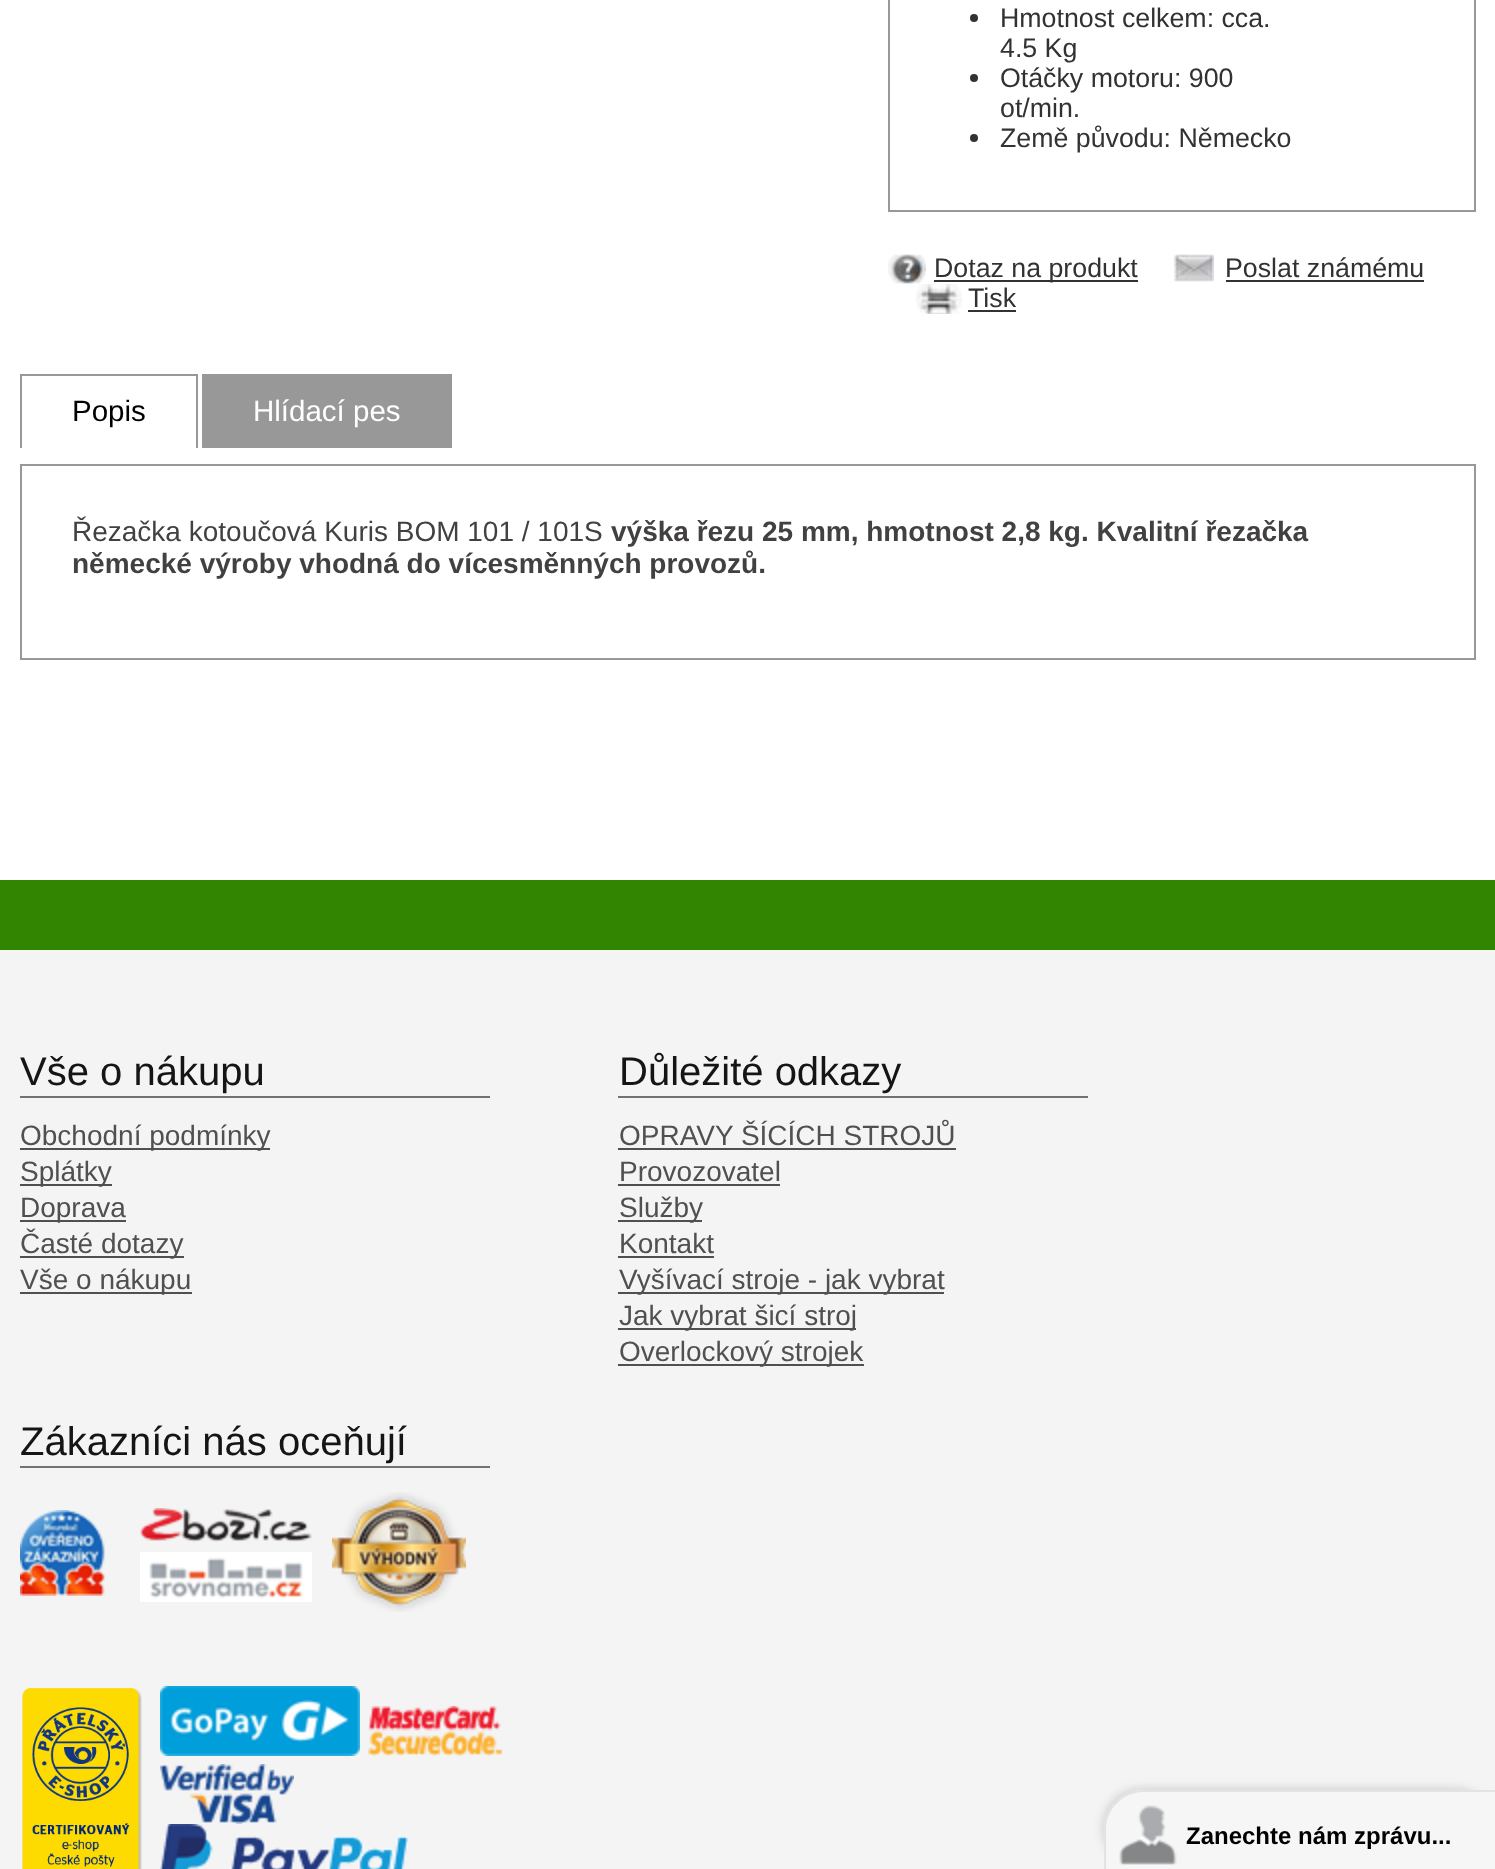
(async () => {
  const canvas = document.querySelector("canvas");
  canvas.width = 1495;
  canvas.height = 1869;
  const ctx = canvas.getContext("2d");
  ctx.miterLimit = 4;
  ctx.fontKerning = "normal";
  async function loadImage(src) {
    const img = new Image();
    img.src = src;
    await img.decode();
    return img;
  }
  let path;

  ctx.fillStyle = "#ffffff";
  ctx.fillRect(0, 0, 1495, 1869);
  ctx.strokeStyle = "#989898";
  ctx.lineWidth = 2;
  ctx.strokeRect(889, -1, 586, 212);
  ctx.fillStyle = "#323232";
  ctx.beginPath();
  ctx.arc(974, 18, 4, 0, Math.PI * 2);
  ctx.fill();
  ctx.beginPath();
  ctx.arc(974, 78, 4, 0, Math.PI * 2);
  ctx.fill();
  ctx.beginPath();
  ctx.arc(974, 138, 4, 0, Math.PI * 2);
  ctx.fill();
  ctx.drawImage(await loadImage("img/1.png"), 888, 254, 38, 30);
  ctx.fillRect(934, 280, 204, 2);
  ctx.drawImage(await loadImage("img/2.png"), 1174, 254, 40, 28);
  ctx.fillRect(1226, 280, 198, 2);
  ctx.drawImage(await loadImage("img/3.png"), 916, 284, 46, 30);
  for (const [x, y, w, h, color] of [
    [968, 310, 48, 2, "#323232"],
    [20, 374, 178, 2, "#989898"],
    [196, 374, 2, 74, "#989898"],
    [20, 374, 2, 74, "#989898"],
    [202, 374, 250, 74, "#989898"],
  ]) {
    ctx.fillStyle = color;
    ctx.fillRect(x, y, w, h);
  }
  ctx.strokeRect(21, 465, 1454, 194);
  for (const [x, y, w, h, color] of [
    [0, 880, 1495, 70, "#318500"],
    [0, 950, 1495, 919, "#f4f4f4"],
    [20, 1096, 470, 2, "#727272"],
    [20, 1148, 250, 2, "#505050"],
    [20, 1184, 92, 2, "#505050"],
    [20, 1220, 106, 2, "#505050"],
    [20, 1256, 164, 2, "#505050"],
    [20, 1292, 172, 2, "#505050"],
    [618, 1096, 470, 2, "#727272"],
    [618, 1148, 338, 2, "#505050"],
    [618, 1184, 162, 2, "#505050"],
    [618, 1220, 84, 2, "#505050"],
    [618, 1256, 96, 2, "#505050"],
    [618, 1292, 326, 2, "#505050"],
    [618, 1328, 238, 2, "#505050"],
    [618, 1364, 246, 2, "#505050"],
    [20, 1466, 470, 2, "#727272"],
  ]) {
    ctx.fillStyle = color;
    ctx.fillRect(x, y, w, h);
  }
  ctx.drawImage(await loadImage("img/4.png"), 20, 1510, 86, 86);
  ctx.drawImage(await loadImage("img/5.png"), 140, 1508, 172, 34);
  ctx.drawImage(await loadImage("img/6.png"), 140, 1552, 172, 50);
  ctx.drawImage(await loadImage("img/7.png"), 332, 1492, 134, 120);
  ctx.drawImage(await loadImage("img/8.png"), 22, 1688, 120, 181);
  ctx.drawImage(await loadImage("img/9.png"), 160, 1686, 200, 70);
  ctx.drawImage(await loadImage("img/10.png"), 368, 1706, 134, 50);
  ctx.drawImage(await loadImage("img/11.png"), 160, 1764, 134, 60);
  ctx.drawImage(await loadImage("img/12.png"), 160, 1824, 248, 45);
  ctx.fillStyle = "rgba(50, 50, 50, 0.17)";
  ctx.filter = "blur(5px)";
  ctx.beginPath();
  ctx.roundRect(1102, 1788, 392, 80, 40);
  ctx.fill();
  ctx.filter = "none";
  ctx.fillStyle = "#f6f6f6";
  path = new Path2D("M1144 1790H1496V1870H1104V1830C1104 1808 1122 1790 1144 1790Z");
  ctx.fill(path);
  ctx.fillStyle = "#e3e3e3";
  path = new Path2D("M1144 1790H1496V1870H1104V1830C1104 1808 1122 1790 1144 1790ZM1144 1792H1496V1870H1106V1830C1106 1809 1123 1792 1144 1792Z");
  ctx.fill(path, "evenodd");
  ctx.drawImage(await loadImage("img/13.png"), 1119, 1805, 58, 60);
  ctx.font = "26.75px Liberation Sans";
  ctx.fillStyle = "#323232";
  for (const [text, x, y] of [
    ["Hmotnost celkem: cca.", 1000, 27],
    ["4.5 Kg", 1000, 57],
    ["Otáčky motoru: 900", 1000, 87],
    ["ot/min.", 1000, 117],
    ["Země původu: Německo", 1000, 147],
    ["Dotaz na produkt", 934, 277],
    ["Poslat známému", 1225, 277],
    ["Tisk", 968, 307],
  ]) {
    ctx.fillText(text, x, y);
  }
  ctx.font = "29.5px Liberation Sans";
  ctx.fillStyle = "#000000";
  ctx.fillText("Popis", 72, 421);
  ctx.fillStyle = "#ffffff";
  ctx.fillText("Hlídací pes", 253, 421);
  ctx.font = "28px Liberation Sans";
  ctx.fillStyle = "#434040";
  ctx.fillText("Řezačka kotoučová Kuris BOM 101 / 101S", 72, 541);
  ctx.font = "bold 28px Liberation Sans";
  ctx.fillText("výška řezu 25 mm, hmotnost 2,8 kg. Kvalitní řezačka", 611, 541);
  ctx.fillText("německé výroby vhodná do vícesměnných provozů.", 72, 573);
  ctx.font = "40px Liberation Sans";
  ctx.fillStyle = "#151515";
  ctx.fillText("Vše o nákupu", 20, 1085);
  ctx.font = "28px Liberation Sans";
  ctx.fillStyle = "#505050";
  for (const [text, x, y] of [
    ["Obchodní podmínky", 20, 1145],
    ["Splátky", 20, 1181],
    ["Doprava", 20, 1217],
    ["Časté dotazy", 20, 1253],
    ["Vše o nákupu", 20, 1289],
  ]) {
    ctx.fillText(text, x, y);
  }
  ctx.font = "40px Liberation Sans";
  ctx.fillStyle = "#151515";
  ctx.fillText("Důležité odkazy", 619, 1085);
  ctx.font = "28px Liberation Sans";
  ctx.fillStyle = "#505050";
  for (const [text, x, y] of [
    ["OPRAVY ŠÍCÍCH STROJŮ", 619, 1145],
    ["Provozovatel", 619, 1181],
    ["Služby", 619, 1217],
    ["Kontakt", 619, 1253],
    ["Vyšívací stroje - jak vybrat", 619, 1289],
    ["Jak vybrat šicí stroj", 619, 1325],
    ["Overlockový strojek", 619, 1361],
  ]) {
    ctx.fillText(text, x, y);
  }
  ctx.font = "40px Liberation Sans";
  ctx.fillStyle = "#151515";
  ctx.fillText("Zákazníci nás oceňují", 20, 1455);
  ctx.font = "bold 24px Liberation Sans";
  ctx.fillStyle = "#000000";
  ctx.fillText("Zanechte nám zprávu...", 1186, 1844);
})();
